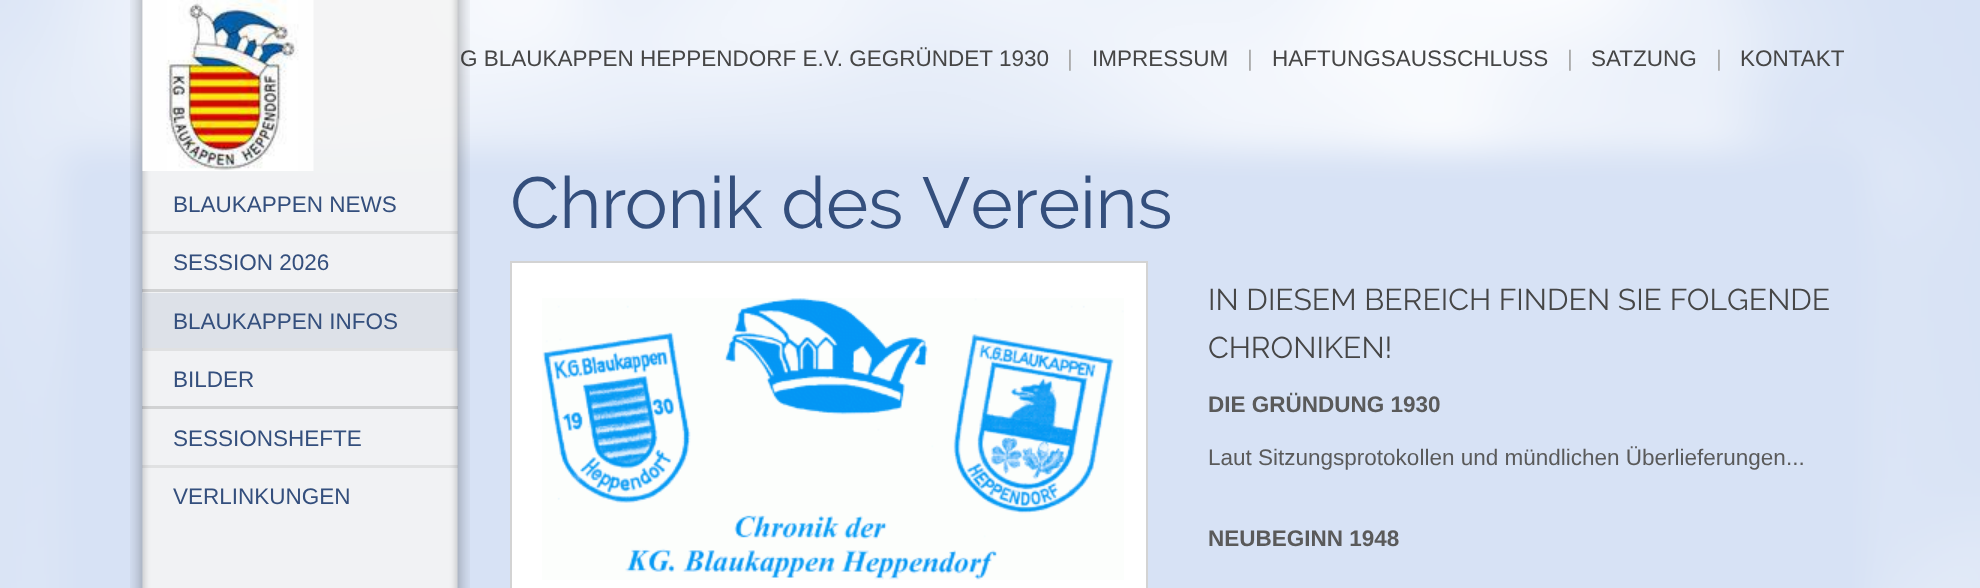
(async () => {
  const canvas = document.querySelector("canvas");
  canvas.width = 1980;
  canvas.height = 588;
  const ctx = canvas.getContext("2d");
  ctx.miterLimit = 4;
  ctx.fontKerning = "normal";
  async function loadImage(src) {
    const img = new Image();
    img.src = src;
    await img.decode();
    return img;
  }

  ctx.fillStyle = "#d7e2f5";
  ctx.fillRect(0, 0, 1980, 588);
  ctx.drawImage(await loadImage("img/1.png"), 0, 0, 1980, 588);
  ctx.fillStyle = "#ffffff";
  ctx.beginPath();
  ctx.rect(511, 262, 636, 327);
  ctx.fill();
  ctx.strokeStyle = "#d3d3d3";
  ctx.lineWidth = 2;
  ctx.stroke();
  ctx.drawImage(await loadImage("img/4.png"), 542, 298, 582, 282);
  ctx.font = "22.5px Liberation Sans";
  ctx.fillStyle = "#464646";
  ctx.fillText("G BLAUKAPPEN HEPPENDORF E.V. GEGRÜNDET 1930", 460, 66);
  ctx.fillStyle = "#aaaaaa";
  ctx.fillText("|", 1067, 66);
  ctx.fillStyle = "#464646";
  ctx.fillText("IMPRESSUM", 1092, 66);
  ctx.fillStyle = "#aaaaaa";
  ctx.fillText("|", 1247, 66);
  ctx.fillStyle = "#464646";
  ctx.fillText("HAFTUNGSAUSSCHLUSS", 1272, 66);
  ctx.fillStyle = "#aaaaaa";
  ctx.fillText("|", 1567, 66);
  ctx.fillStyle = "#464646";
  ctx.fillText("SATZUNG", 1591, 66);
  ctx.fillStyle = "#aaaaaa";
  ctx.fillText("|", 1716, 66);
  ctx.fillStyle = "#464646";
  ctx.fillText("KONTAKT", 1740, 66);
  ctx.drawImage(await loadImage("img/2.png"), 130, 0, 340, 588);
  ctx.drawImage(await loadImage("img/3.png"), 142, 0, 172, 171);
  ctx.fillStyle = "#344f7d";
  ctx.fillText("BLAUKAPPEN NEWS", 173, 212);
  ctx.fillStyle = "rgba(128, 128, 128, 0.15)";
  ctx.fillRect(142, 231, 316, 3);
  ctx.fillStyle = "#344f7d";
  ctx.fillText("SESSION 2026", 173, 270);
  ctx.fillStyle = "rgba(27, 27, 27, 0.15)";
  ctx.fillRect(142, 289, 316, 3);
  ctx.fillStyle = "rgba(52, 79, 125, 0.1)";
  ctx.fillRect(143, 293, 315, 55);
  ctx.fillStyle = "#344f7d";
  ctx.fillText("BLAUKAPPEN INFOS", 173, 329);
  ctx.fillStyle = "rgba(128, 128, 128, 0.15)";
  ctx.fillRect(142, 348, 316, 3);
  ctx.fillStyle = "#344f7d";
  ctx.fillText("BILDER", 173, 387);
  ctx.fillStyle = "rgba(27, 27, 27, 0.15)";
  ctx.fillRect(142, 406, 316, 3);
  ctx.fillStyle = "#344f7d";
  ctx.fillText("SESSIONSHEFTE", 173, 446);
  ctx.fillStyle = "rgba(128, 128, 128, 0.15)";
  ctx.fillRect(142, 465, 316, 3);
  ctx.fillStyle = "#344f7d";
  ctx.fillText("VERLINKUNGEN", 173, 504);
  ctx.font = "72px Raleway";
  ctx.fillText("Chronik des Vereins", 510, 228);
  ctx.font = "30px Raleway";
  ctx.fillStyle = "#464646";
  ctx.fillText("IN DIESEM BEREICH FINDEN SIE FOLGENDE", 1208, 310);
  ctx.fillText("CHRONIKEN!", 1208, 358);
  ctx.font = "bold 22.5px Liberation Sans";
  ctx.fillStyle = "#5a5a5a";
  ctx.fillText("DIE GRÜNDUNG 1930", 1208, 412);
  ctx.font = "22.5px Liberation Sans";
  ctx.fillText("Laut Sitzungsprotokollen und mündlichen Überlieferungen...", 1208, 465);
  ctx.font = "bold 22.5px Liberation Sans";
  ctx.fillText("NEUBEGINN 1948", 1208, 546);
})();
